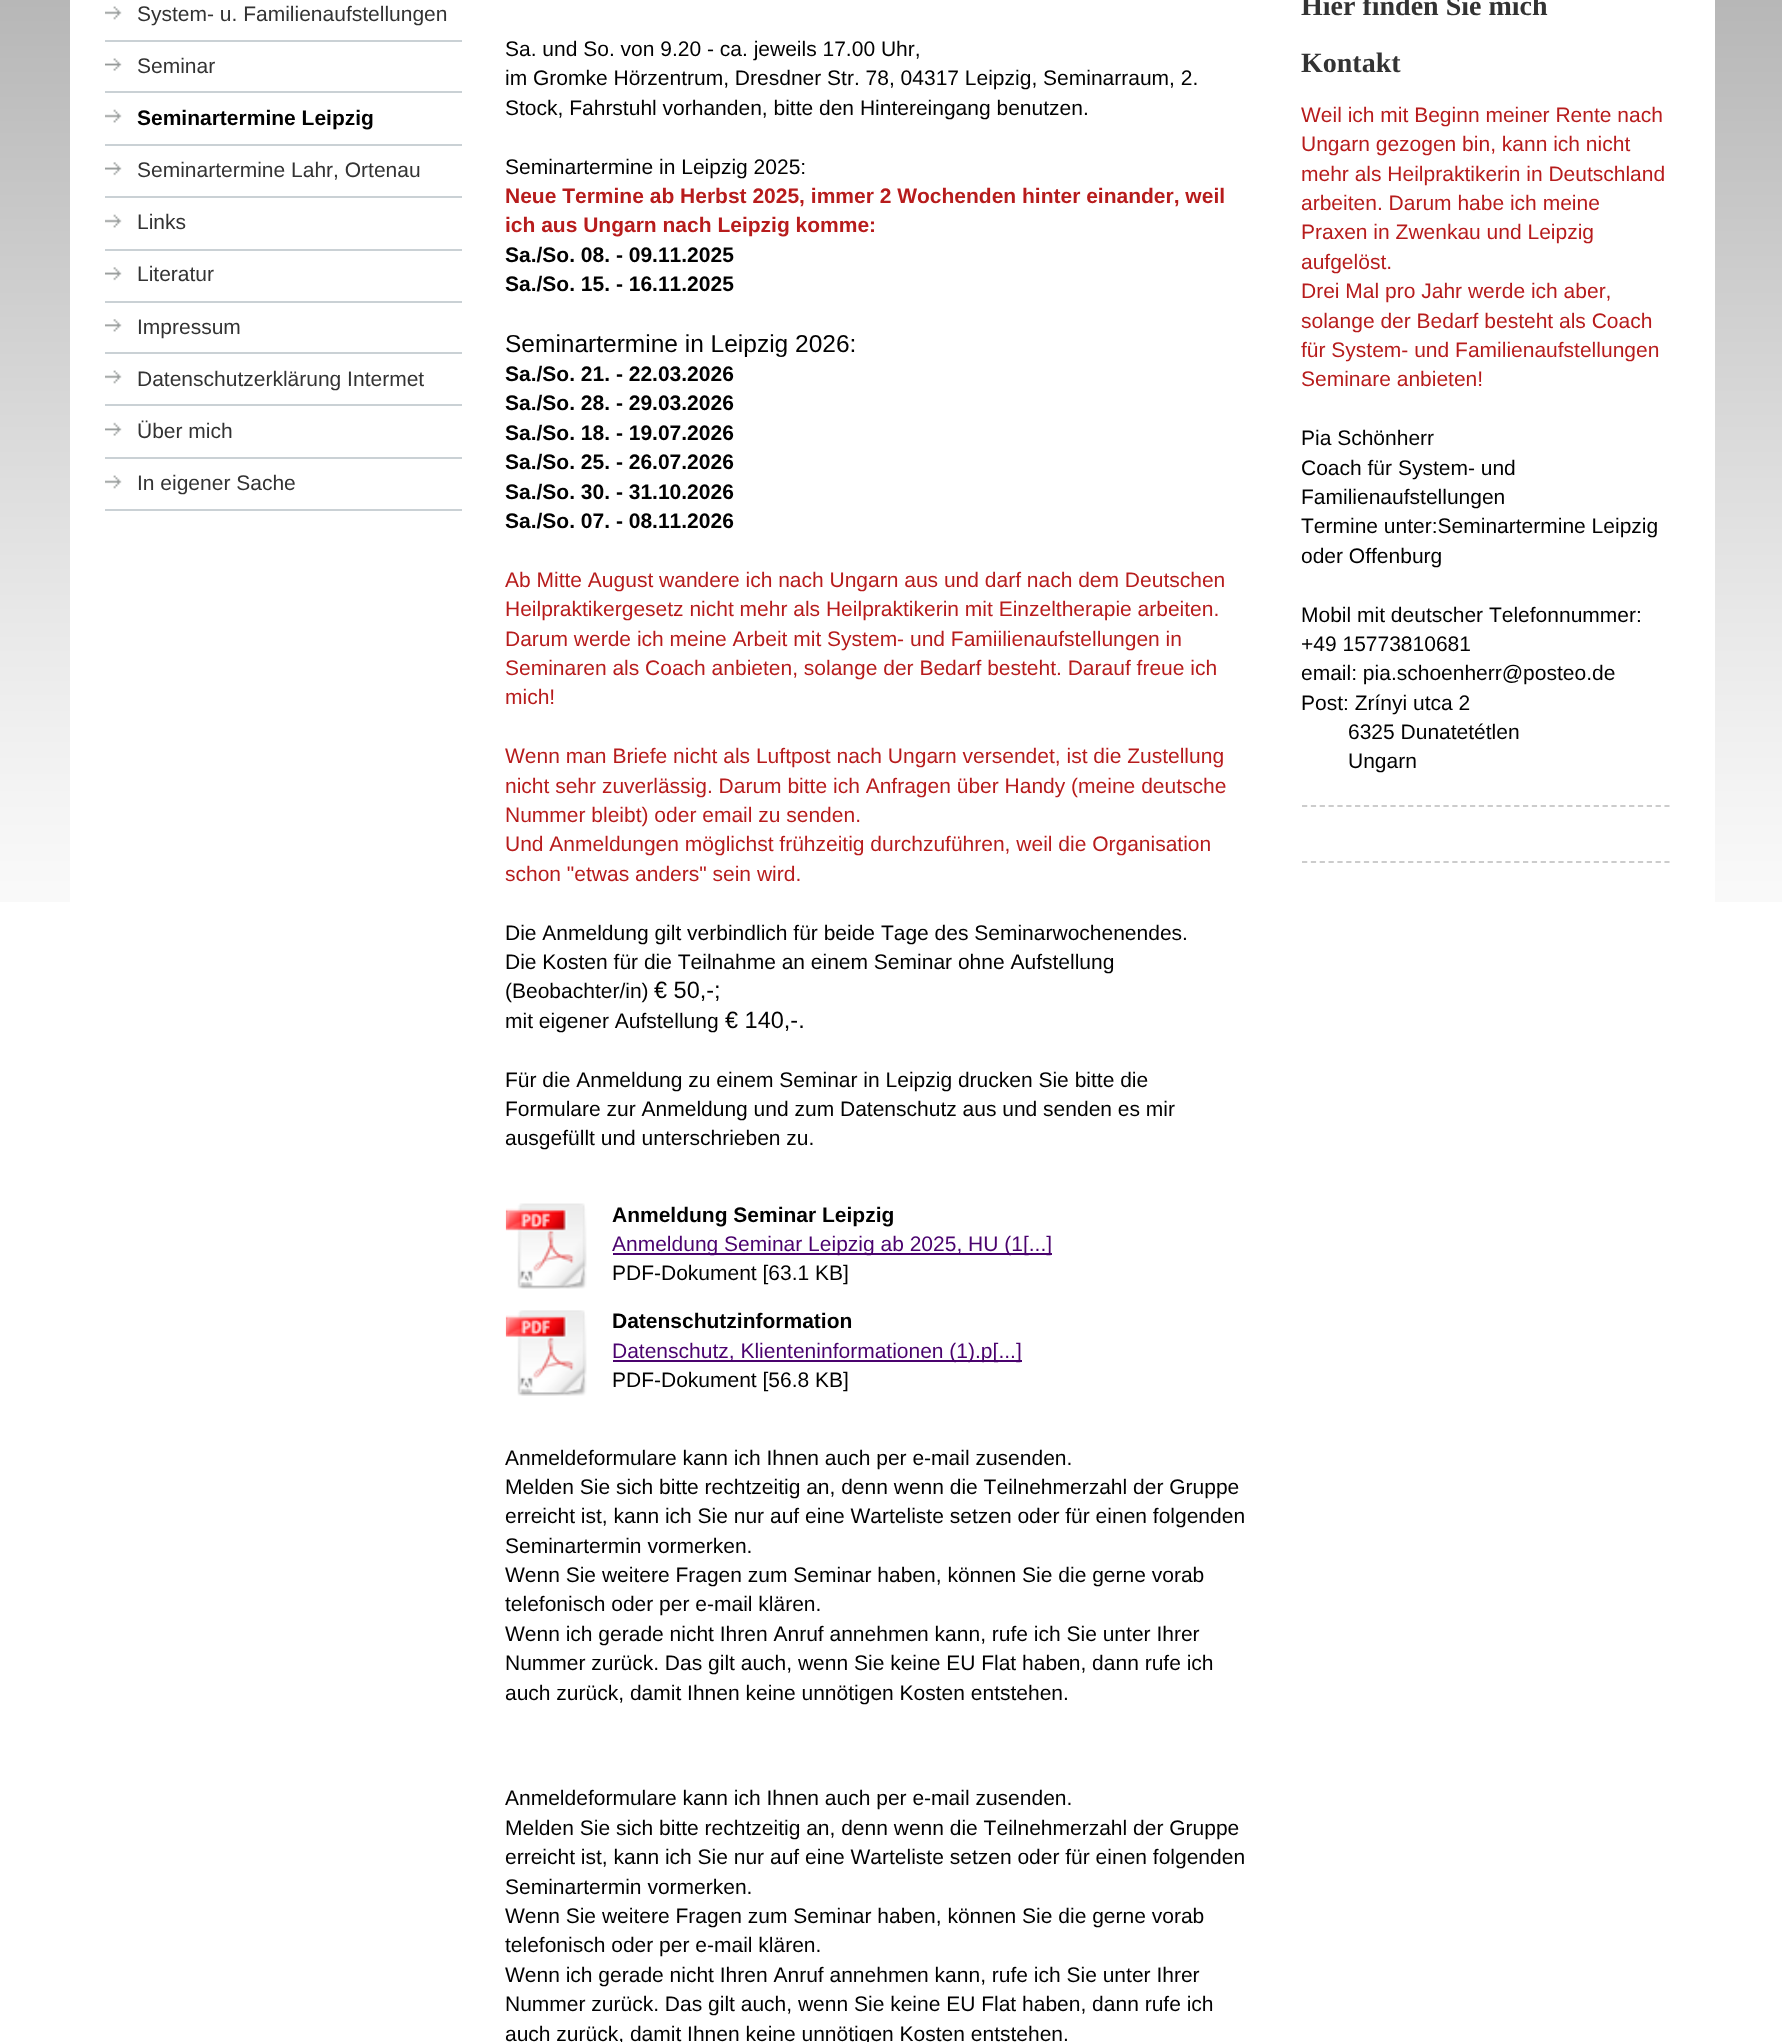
(async () => {
  const canvas = document.querySelector("canvas");
  canvas.width = 1782;
  canvas.height = 2042;
  const ctx = canvas.getContext("2d");
  ctx.miterLimit = 4;
  ctx.fontKerning = "none";
  async function loadImage(src) {
    const img = new Image();
    img.src = src;
    await img.decode();
    return img;
  }
  let path;

  ctx.fillStyle = "#ffffff";
  ctx.fillRect(0, 0, 1782, 2042);
  ctx.drawImage(await loadImage("img/1.png"), 0, 0, 1782, 902);
  ctx.fillRect(70, 0, 1645, 902);
  ctx.drawImage(await loadImage("img/2.png"), 105, 6, 17, 14);
  ctx.drawImage(await loadImage("img/3.png"), 105, 42, 357, 29);
  ctx.fillStyle = "#cad1d5";
  ctx.fillRect(105, 40, 357, 2);
  ctx.drawImage(await loadImage("img/4.png"), 105, 93, 357, 30);
  ctx.fillRect(105, 91, 357, 2);
  ctx.drawImage(await loadImage("img/5.png"), 105, 146, 357, 30);
  ctx.fillRect(105, 144, 357, 2);
  ctx.drawImage(await loadImage("img/4.png"), 105, 198, 357, 30);
  ctx.fillRect(105, 196, 357, 2);
  ctx.drawImage(await loadImage("img/5.png"), 105, 251, 357, 30);
  ctx.fillRect(105, 249, 357, 2);
  ctx.drawImage(await loadImage("img/6.png"), 105, 303, 357, 29);
  ctx.fillRect(105, 301, 357, 2);
  ctx.drawImage(await loadImage("img/7.png"), 105, 354, 357, 30);
  ctx.fillRect(105, 352, 357, 2);
  ctx.drawImage(await loadImage("img/8.png"), 105, 406, 357, 30);
  ctx.fillRect(105, 404, 357, 2);
  ctx.drawImage(await loadImage("img/7.png"), 105, 459, 357, 30);
  ctx.fillRect(105, 457, 357, 2);
  ctx.fillRect(105, 509, 357, 2);
  ctx.drawImage(await loadImage("img/9.png"), 505, 1203, 82, 86);
  ctx.fillStyle = "#4a026e";
  ctx.fillRect(613, 1253, 439, 2);
  ctx.drawImage(await loadImage("img/10.png"), 505, 1310, 82, 86);
  ctx.fillRect(613, 1360, 409, 2);
  path = new Path2D("M1302 806H1669.5");
  ctx.strokeStyle = "#cccccc";
  ctx.lineWidth = 1.8;
  ctx.setLineDash([5.25, 3.59]);
  ctx.stroke(path);
  path = new Path2D("M1302 862H1669.5");
  ctx.stroke(path);
  ctx.font = "21px Liberation Sans";
  ctx.fillStyle = "#333333";
  ctx.fillText("System- u. Familienaufstellungen", 137, 21);
  ctx.fillText("Seminar", 137, 73);
  ctx.font = "bold 21px Liberation Sans";
  ctx.fillStyle = "#010101";
  ctx.fillText("Seminartermine Leipzig", 137, 125);
  ctx.font = "21px Liberation Sans";
  ctx.fillStyle = "#333333";
  for (const [text, x, y] of [
    ["Seminartermine Lahr, Ortenau", 137, 177],
    ["Links", 137, 229],
    ["Literatur", 137, 281],
    ["Impressum", 137, 334],
    ["Datenschutzerklärung Intermet", 137, 386],
    ["Über mich", 137, 438],
    ["In eigener Sache", 137, 490],
  ]) {
    ctx.fillText(text, x, y);
  }
  ctx.fillStyle = "#010101";
  for (const [text, x, y] of [
    ["Sa. und So. von 9.20 - ca. jeweils 17.00 Uhr,", 505, 56],
    ["im Gromke Hörzentrum, Dresdner Str. 78, 04317 Leipzig, Seminarraum, 2.", 505, 85],
    ["Stock, Fahrstuhl vorhanden, bitte den Hintereingang benutzen.", 505, 115],
    ["Seminartermine in Leipzig 2025:", 505, 174],
  ]) {
    ctx.fillText(text, x, y);
  }
  ctx.font = "bold 21px Liberation Sans";
  ctx.fillStyle = "#b71c1c";
  ctx.fillText("Neue Termine ab Herbst 2025, immer 2 Wochenden hinter einander, weil", 505, 203);
  ctx.fillText("ich aus Ungarn nach Leipzig komme:", 505, 232);
  ctx.fillStyle = "#010101";
  ctx.fillText("Sa./So. 08. - 09.11.2025", 505, 262);
  ctx.fillText("Sa./So. 15. - 16.11.2025", 505, 291);
  ctx.font = "24.5px Liberation Sans";
  ctx.fillText("Seminartermine in Leipzig 2026:", 505, 352);
  ctx.font = "bold 21px Liberation Sans";
  for (const [text, x, y] of [
    ["Sa./So. 21. - 22.03.2026", 505, 381],
    ["Sa./So. 28. - 29.03.2026", 505, 410],
    ["Sa./So. 18. - 19.07.2026", 505, 440],
    ["Sa./So. 25. - 26.07.2026", 505, 469],
    ["Sa./So. 30. - 31.10.2026", 505, 499],
    ["Sa./So. 07. - 08.11.2026", 505, 528],
  ]) {
    ctx.fillText(text, x, y);
  }
  ctx.font = "21px Liberation Sans";
  ctx.fillStyle = "#b71c1c";
  for (const [text, x, y] of [
    ["Ab Mitte August wandere ich nach Ungarn aus und darf nach dem Deutschen", 505, 587],
    ["Heilpraktikergesetz nicht mehr als Heilpraktikerin mit Einzeltherapie arbeiten.", 505, 616],
    ["Darum werde ich meine Arbeit mit System- und Famiilienaufstellungen in", 505, 646],
    ["Seminaren als Coach anbieten, solange der Bedarf besteht. Darauf freue ich", 505, 675],
    ["mich!", 505, 704],
    ["Wenn man Briefe nicht als Luftpost nach Ungarn versendet, ist die Zustellung", 505, 763],
    ["nicht sehr zuverlässig. Darum bitte ich Anfragen über Handy (meine deutsche", 505, 793],
    ["Nummer bleibt) oder email zu senden.", 505, 822],
    ["Und Anmeldungen möglichst frühzeitig durchzuführen, weil die Organisation", 505, 851],
    ["schon \"etwas anders\" sein wird.", 505, 881],
  ]) {
    ctx.fillText(text, x, y);
  }
  ctx.fillStyle = "#010101";
  for (const [text, x, y] of [
    ["Die Anmeldung gilt verbindlich für beide Tage des Seminarwochenendes.", 505, 940],
    ["Die Kosten für die Teilnahme an einem Seminar ohne Aufstellung", 505, 969],
    ["(Beobachter/in)", 505, 998],
  ]) {
    ctx.fillText(text, x, y);
  }
  ctx.font = "23.5px Liberation Sans";
  ctx.fillText("€ 50,-;", 654, 998);
  ctx.font = "21px Liberation Sans";
  ctx.fillText("mit eigener Aufstellung", 505, 1028);
  ctx.font = "23.5px Liberation Sans";
  ctx.fillText("€ 140,-.", 725, 1028);
  ctx.font = "21px Liberation Sans";
  for (const [text, x, y] of [
    ["Für die Anmeldung zu einem Seminar in Leipzig drucken Sie bitte die", 505, 1087],
    ["Formulare zur Anmeldung und zum Datenschutz aus und senden es mir", 505, 1116],
    ["ausgefüllt und unterschrieben zu.", 505, 1145],
  ]) {
    ctx.fillText(text, x, y);
  }
  ctx.font = "bold 21px Liberation Sans";
  ctx.fillText("Anmeldung Seminar Leipzig", 612, 1222);
  ctx.font = "21px Liberation Sans";
  ctx.fillStyle = "#4a026e";
  ctx.fillText("Anmeldung Seminar Leipzig ab 2025, HU (1[...]", 612, 1251);
  ctx.fillStyle = "#010101";
  ctx.fillText("PDF-Dokument [63.1 KB]", 612, 1280);
  ctx.font = "bold 21px Liberation Sans";
  ctx.fillText("Datenschutzinformation", 612, 1328);
  ctx.font = "21px Liberation Sans";
  ctx.fillStyle = "#4a026e";
  ctx.fillText("Datenschutz, Klienteninformationen (1).p[...]", 612, 1358);
  ctx.fillStyle = "#010101";
  for (const [text, x, y] of [
    ["PDF-Dokument [56.8 KB]", 612, 1387],
    ["Anmeldeformulare kann ich Ihnen auch per e-mail zusenden.", 505, 1465],
    ["Melden Sie sich bitte rechtzeitig an, denn wenn die Teilnehmerzahl der Gruppe", 505, 1494],
    ["erreicht ist, kann ich Sie nur auf eine Warteliste setzen oder für einen folgenden", 505, 1523],
    ["Seminartermin vormerken.", 505, 1553],
    ["Wenn Sie weitere Fragen zum Seminar haben, können Sie die gerne vorab", 505, 1582],
    ["telefonisch oder per e-mail klären. ", 505, 1611],
    ["Wenn ich gerade nicht Ihren Anruf annehmen kann, rufe ich Sie unter Ihrer", 505, 1641],
    ["Nummer zurück. Das gilt auch, wenn Sie keine EU Flat haben, dann rufe ich", 505, 1670],
    ["auch zurück, damit Ihnen keine unnötigen Kosten entstehen.", 505, 1700],
    ["Anmeldeformulare kann ich Ihnen auch per e-mail zusenden.", 505, 1805],
    ["Melden Sie sich bitte rechtzeitig an, denn wenn die Teilnehmerzahl der Gruppe", 505, 1835],
    ["erreicht ist, kann ich Sie nur auf eine Warteliste setzen oder für einen folgenden", 505, 1864],
    ["Seminartermin vormerken.", 505, 1894],
    ["Wenn Sie weitere Fragen zum Seminar haben, können Sie die gerne vorab", 505, 1923],
    ["telefonisch oder per e-mail klären. ", 505, 1952],
    ["Wenn ich gerade nicht Ihren Anruf annehmen kann, rufe ich Sie unter Ihrer", 505, 1982],
    ["Nummer zurück. Das gilt auch, wenn Sie keine EU Flat haben, dann rufe ich", 505, 2011],
    ["auch zurück, damit Ihnen keine unnötigen Kosten entstehen.", 505, 2041],
  ]) {
    ctx.fillText(text, x, y);
  }
  ctx.font = "bold 28px Liberation Serif";
  ctx.fillStyle = "#333333";
  ctx.fillText("Hier finden Sie mich", 1301, 15);
  ctx.fillText("Kontakt", 1301, 72);
  ctx.font = "21px Liberation Sans";
  ctx.fillStyle = "#b71c1c";
  for (const [text, x, y] of [
    ["Weil ich mit Beginn meiner Rente nach", 1301, 122],
    ["Ungarn gezogen bin, kann ich nicht", 1301, 151],
    ["mehr als Heilpraktikerin in Deutschland", 1301, 181],
    ["arbeiten. Darum habe ich meine", 1301, 210],
    ["Praxen in Zwenkau und Leipzig", 1301, 239],
    ["aufgelöst.", 1301, 269],
    ["Drei Mal pro Jahr werde ich aber,", 1301, 298],
    ["solange der Bedarf besteht als Coach", 1301, 328],
    ["für System- und Familienaufstellungen", 1301, 357],
    ["Seminare anbieten!", 1301, 386],
  ]) {
    ctx.fillText(text, x, y);
  }
  ctx.fillStyle = "#010101";
  for (const [text, x, y] of [
    ["Pia Schönherr", 1301, 445],
    ["Coach für System- und", 1301, 475],
    ["Familienaufstellungen", 1301, 504],
    ["Termine unter:Seminartermine Leipzig", 1301, 533],
    ["oder Offenburg", 1301, 563],
    ["Mobil mit deutscher Telefonnummer:", 1301, 622],
    ["+49 15773810681", 1301, 651],
    ["email: pia.schoenherr@posteo.de", 1301, 680],
    ["Post: Zrínyi utca 2", 1301, 710],
    ["6325 Dunatetétlen", 1348, 739],
    ["Ungarn", 1348, 768],
  ]) {
    ctx.fillText(text, x, y);
  }
})();
